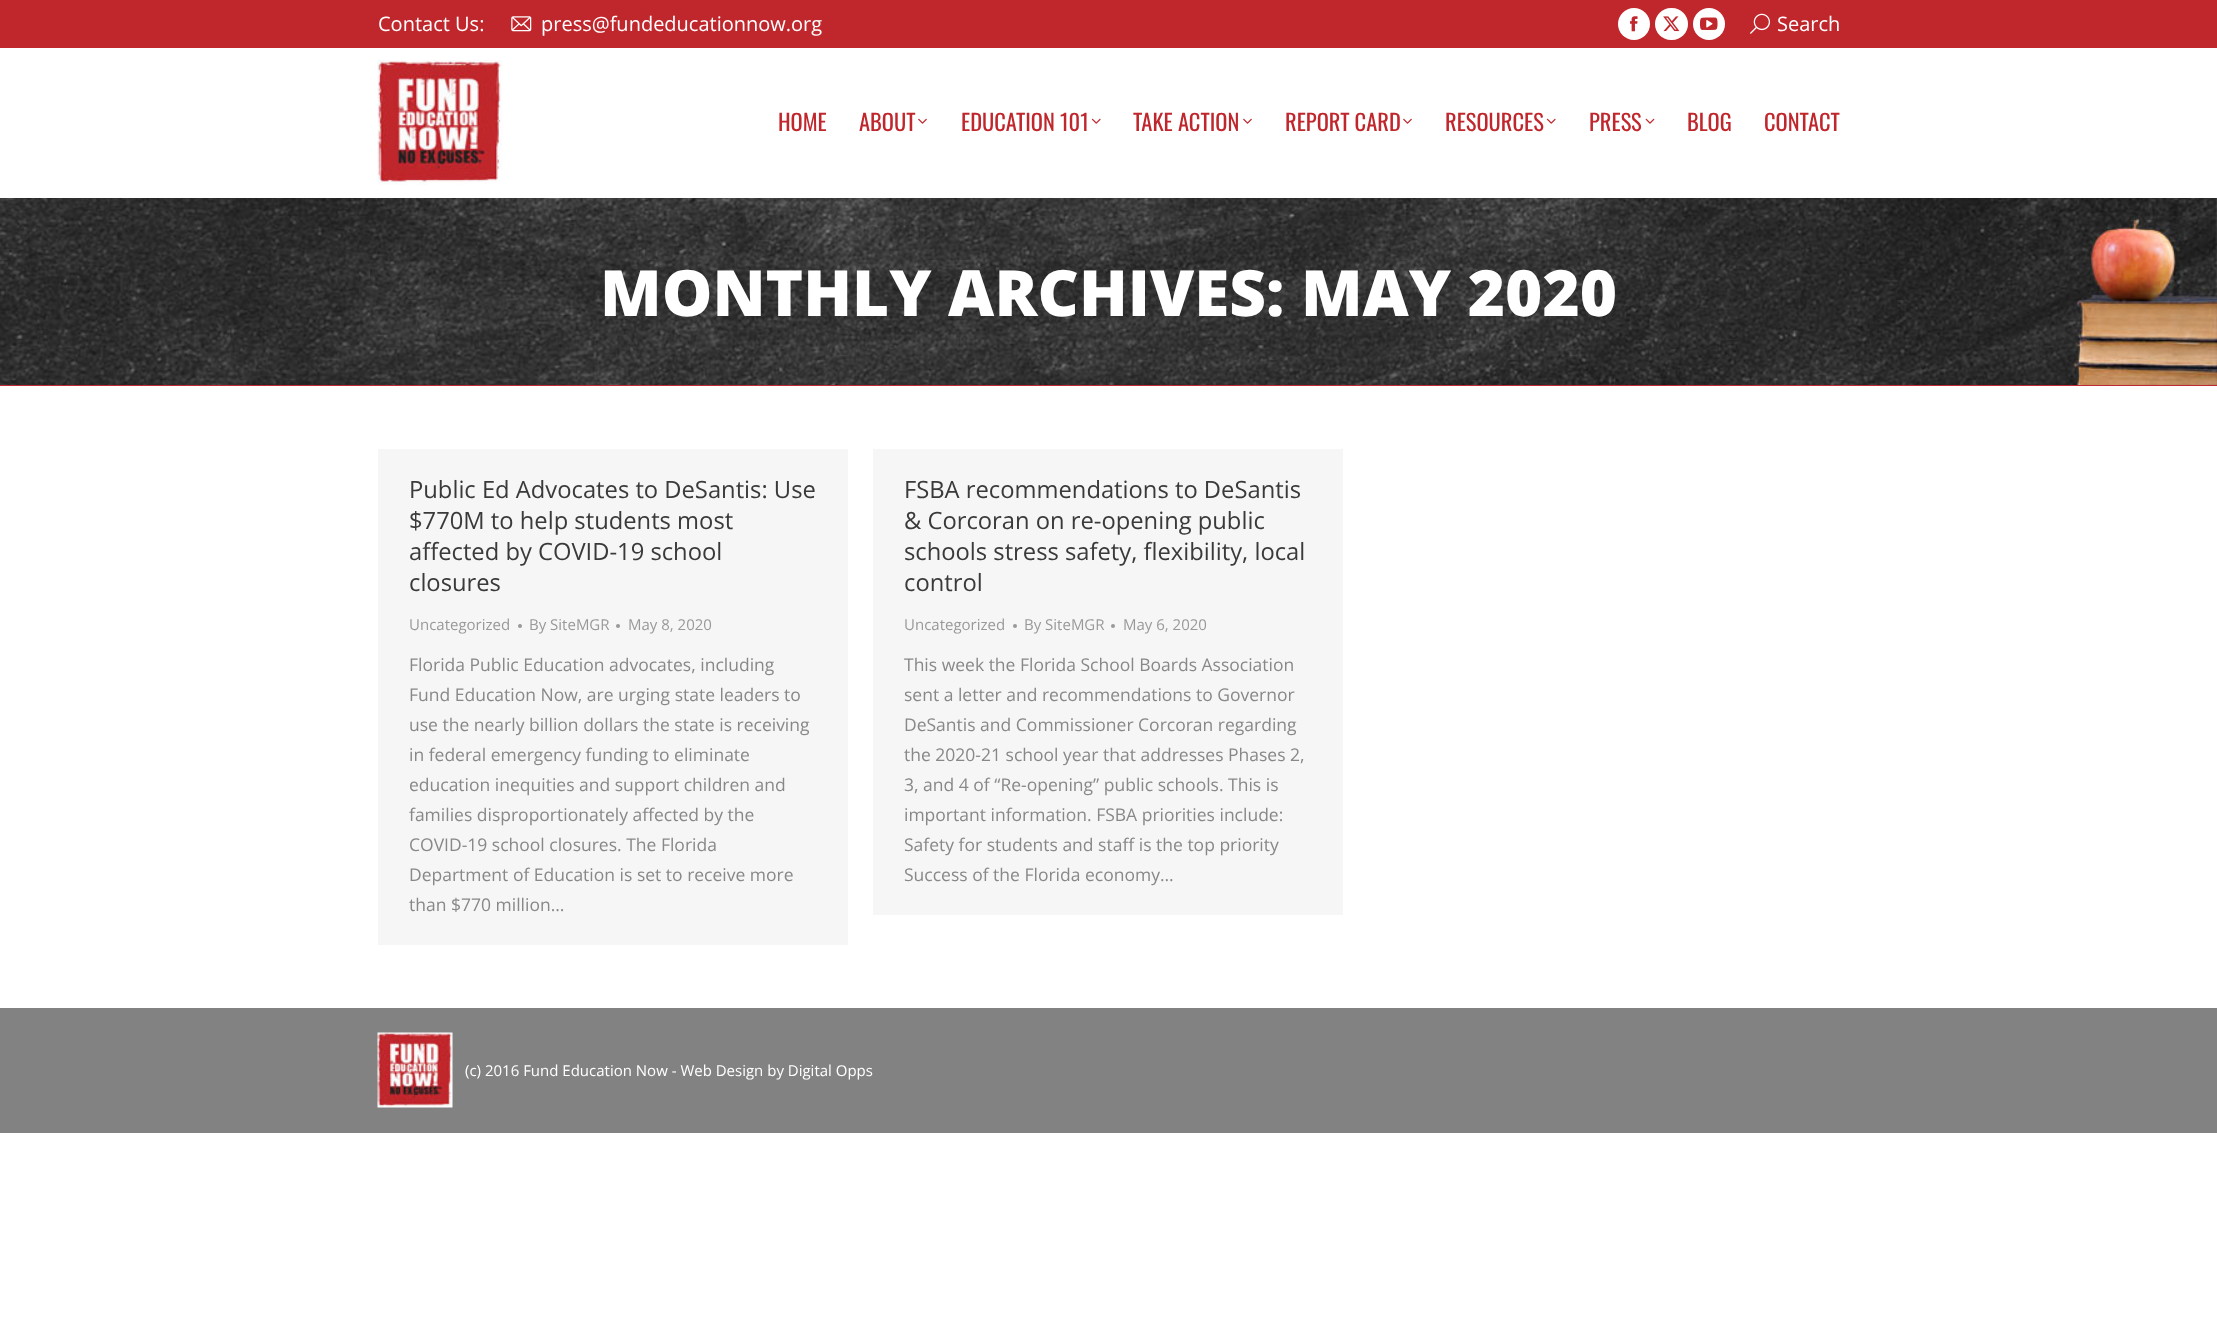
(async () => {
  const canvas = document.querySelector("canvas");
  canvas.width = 2217;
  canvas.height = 1325;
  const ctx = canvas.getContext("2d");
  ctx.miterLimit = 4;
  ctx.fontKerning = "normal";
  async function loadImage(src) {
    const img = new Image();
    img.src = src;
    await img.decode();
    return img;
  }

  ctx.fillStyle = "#ffffff";
  ctx.fillRect(0, 0, 2217, 1325);
  ctx.drawImage(await loadImage("img/10.png"), 0, 198, 2217, 187);
  ctx.fillStyle = "rgba(0, 0, 0, 0.07)";
  ctx.filter = "blur(9.5px)";
  ctx.beginPath();
  ctx.rect(-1, -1, 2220, 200);
  ctx.fill();
  ctx.filter = "none";
  ctx.fillStyle = "#ffffff";
  ctx.fillRect(0, 48, 2217, 150);
  ctx.fillStyle = "#c0272d";
  ctx.fillRect(0, 0, 2217, 48);
  ctx.drawImage(await loadImage("img/1.png"), 511, 16, 21, 16);
  ctx.fillStyle = "#ffffff";
  ctx.beginPath();
  ctx.arc(1634, 24, 16, 0, Math.PI * 2);
  ctx.fill();
  ctx.drawImage(await loadImage("img/2.png"), 1630, 16, 8, 16);
  ctx.beginPath();
  ctx.roundRect(1655, 8, 33, 32, 16);
  ctx.fill();
  ctx.drawImage(await loadImage("img/3.png"), 1663, 16, 17, 16);
  ctx.beginPath();
  ctx.arc(1709, 24, 16, 0, Math.PI * 2);
  ctx.fill();
  ctx.drawImage(await loadImage("img/4.png"), 1700, 17, 18, 13);
  ctx.drawImage(await loadImage("img/5.png"), 1750, 13, 20, 21);
  ctx.drawImage(await loadImage("img/6.png"), 377, 60, 126, 125);
  ctx.drawImage(await loadImage("img/7.png"), 918, 118, 9, 6);
  ctx.drawImage(await loadImage("img/8.png"), 1091, 118, 10, 6);
  ctx.drawImage(await loadImage("img/7.png"), 1243, 118, 9, 6);
  ctx.drawImage(await loadImage("img/7.png"), 1403, 118, 9, 6);
  ctx.drawImage(await loadImage("img/8.png"), 1546, 118, 10, 6);
  ctx.drawImage(await loadImage("img/9.png"), 1645, 118, 10, 6);
  ctx.fillStyle = "#be2932";
  ctx.fillRect(0, 385, 2217, 1);
  ctx.fillStyle = "#f6f6f6";
  ctx.fillRect(378, 449, 470, 496);
  ctx.fillStyle = "#999999";
  ctx.beginPath();
  ctx.arc(520, 626, 2, 0, Math.PI * 2);
  ctx.fill();
  ctx.beginPath();
  ctx.arc(618, 626, 2, 0, Math.PI * 2);
  ctx.fill();
  ctx.fillStyle = "#f6f6f6";
  ctx.fillRect(873, 449, 470, 466);
  ctx.fillStyle = "#999999";
  ctx.beginPath();
  ctx.arc(1015, 626, 2, 0, Math.PI * 2);
  ctx.fill();
  ctx.beginPath();
  ctx.arc(1113, 626, 2, 0, Math.PI * 2);
  ctx.fill();
  ctx.fillStyle = "#828282";
  ctx.fillRect(0, 1008, 2217, 125);
  ctx.drawImage(await loadImage("img/11.png"), 377, 1032, 76, 76);
  ctx.font = "20px Open Sans";
  ctx.fillStyle = "#ffffff";
  for (const [text, x, y] of [
    ["Contact Us:", 378, 31],
    ["press@fundeducationnow.org", 541, 31],
    ["Search", 1777, 31],
  ]) {
    ctx.fillText(text, x, y);
  }
  ctx.font = "22.5px Oswald";
  ctx.fillStyle = "#c0272d";
  for (const [text, x, y] of [
    ["HOME", 778, 131],
    ["ABOUT", 859, 131],
    ["EDUCATION 101", 961, 131],
    ["TAKE ACTION", 1133, 131],
    ["REPORT CARD", 1285, 131],
    ["RESOURCES", 1445, 131],
    ["PRESS", 1589, 131],
    ["BLOG", 1687, 131],
    ["CONTACT", 1764, 131],
  ]) {
    ctx.fillText(text, x, y);
  }
  ctx.font = "800 63.75px Open Sans";
  ctx.fillStyle = "#ffffff";
  ctx.fillText("MONTHLY ARCHIVES: MAY 2020", 600, 316);
  ctx.font = "23.75px Open Sans";
  ctx.fillStyle = "#3a3a3a";
  for (const [text, x, y] of [
    ["Public Ed Advocates to DeSantis: Use", 409, 498],
    ["$770M to help students most", 409, 529],
    ["affected by COVID-19 school", 409, 560],
    ["closures", 409, 591],
  ]) {
    ctx.fillText(text, x, y);
  }
  ctx.font = "15px Open Sans";
  ctx.fillStyle = "#999999";
  for (const [text, x, y] of [
    ["Uncategorized", 409, 630],
    ["By SiteMGR", 529, 630],
    ["May 8, 2020", 628, 630],
  ]) {
    ctx.fillText(text, x, y);
  }
  ctx.font = "17.5px Open Sans";
  ctx.fillStyle = "#888888";
  for (const [text, x, y] of [
    ["Florida Public Education advocates, including", 409, 671],
    ["Fund Education Now, are urging state leaders to", 409, 701],
    ["use the nearly billion dollars the state is receiving", 409, 731],
    ["in federal emergency funding to eliminate", 409, 761],
    ["education inequities and support children and", 409, 791],
    ["families disproportionately affected by the", 409, 821],
    ["COVID-19 school closures. The Florida", 409, 851],
    ["Department of Education is set to receive more", 409, 881],
    ["than $770 million…", 409, 911],
  ]) {
    ctx.fillText(text, x, y);
  }
  ctx.font = "23.75px Open Sans";
  ctx.fillStyle = "#3a3a3a";
  for (const [text, x, y] of [
    ["FSBA recommendations to DeSantis", 904, 498],
    ["& Corcoran on re-opening public", 904, 529],
    ["schools stress safety, flexibility, local", 904, 560],
    ["control", 904, 591],
  ]) {
    ctx.fillText(text, x, y);
  }
  ctx.font = "15px Open Sans";
  ctx.fillStyle = "#999999";
  for (const [text, x, y] of [
    ["Uncategorized", 904, 630],
    ["By SiteMGR", 1024, 630],
    ["May 6, 2020", 1123, 630],
  ]) {
    ctx.fillText(text, x, y);
  }
  ctx.font = "17.5px Open Sans";
  ctx.fillStyle = "#888888";
  for (const [text, x, y] of [
    ["This week the Florida School Boards Association", 904, 671],
    ["sent a letter and recommendations to Governor", 904, 701],
    ["DeSantis and Commissioner Corcoran regarding", 904, 731],
    ["the 2020-21 school year that addresses Phases 2,", 904, 761],
    ["3, and 4 of “Re-opening” public schools. This is", 904, 791],
    ["important information. FSBA priorities include:", 904, 821],
    ["Safety for students and staff is the top priority", 904, 851],
    ["Success of the Florida economy…", 904, 881],
  ]) {
    ctx.fillText(text, x, y);
  }
  ctx.font = "15px Open Sans";
  ctx.fillStyle = "#ffffff";
  ctx.fillText("(c) 2016 Fund Education Now - Web Design by Digital Opps", 465, 1076);
})();
